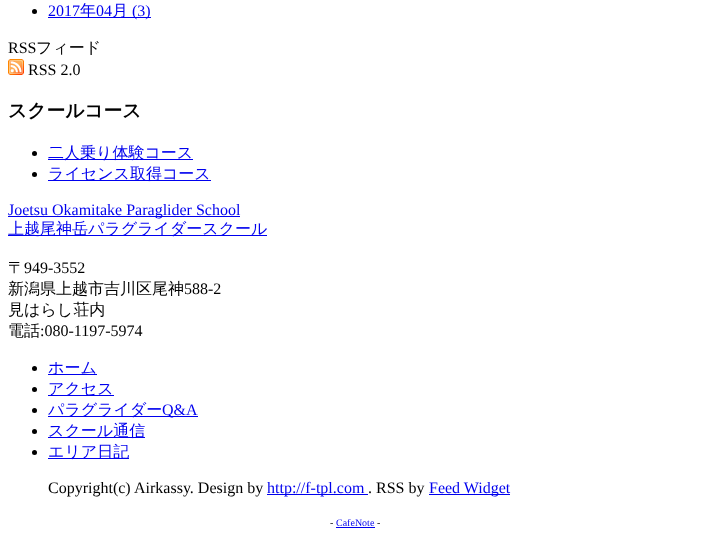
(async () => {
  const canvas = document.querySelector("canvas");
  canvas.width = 711;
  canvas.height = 548;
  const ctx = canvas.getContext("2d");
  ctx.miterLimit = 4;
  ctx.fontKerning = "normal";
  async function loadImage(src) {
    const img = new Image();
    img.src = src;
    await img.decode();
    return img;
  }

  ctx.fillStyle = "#ffffff";
  ctx.fillRect(0, 0, 711, 548);
  ctx.fillStyle = "#000000";
  ctx.beginPath();
  ctx.arc(34.5, 11.5, 2.5, 0, Math.PI * 2);
  ctx.fill();
  ctx.fillStyle = "#0000ee";
  ctx.fillRect(48, 17, 103, 1);
  ctx.drawImage(await loadImage("img/1.png"), 8, 59, 16, 16);
  ctx.fillStyle = "#000000";
  ctx.beginPath();
  ctx.arc(34.5, 153.5, 2.5, 0, Math.PI * 2);
  ctx.fill();
  ctx.fillStyle = "#0000ee";
  ctx.fillRect(48, 159, 145, 1);
  ctx.fillStyle = "#000000";
  ctx.beginPath();
  ctx.arc(34.5, 174.5, 2.5, 0, Math.PI * 2);
  ctx.fill();
  for (const [x, y, w, h, color] of [
    [48, 180, 163, 1, "#0000ee"],
    [8, 216, 232, 1, "#0000ee"],
    [8, 235, 259, 1, "#0000ee"],
  ]) {
    ctx.fillStyle = color;
    ctx.fillRect(x, y, w, h);
  }
  ctx.fillStyle = "#000000";
  ctx.beginPath();
  ctx.arc(34.5, 368.5, 2.5, 0, Math.PI * 2);
  ctx.fill();
  ctx.fillStyle = "#0000ee";
  ctx.fillRect(48, 374, 49, 1);
  ctx.fillStyle = "#000000";
  ctx.beginPath();
  ctx.arc(34.5, 389.5, 2.5, 0, Math.PI * 2);
  ctx.fill();
  ctx.fillStyle = "#0000ee";
  ctx.fillRect(48, 395, 66, 1);
  ctx.fillStyle = "#000000";
  ctx.beginPath();
  ctx.arc(34.5, 410.5, 2.5, 0, Math.PI * 2);
  ctx.fill();
  ctx.fillStyle = "#0000ee";
  ctx.fillRect(48, 416, 150, 1);
  ctx.fillStyle = "#000000";
  ctx.beginPath();
  ctx.arc(34.5, 431.5, 2.5, 0, Math.PI * 2);
  ctx.fill();
  ctx.fillStyle = "#0000ee";
  ctx.fillRect(48, 437, 97, 1);
  ctx.fillStyle = "#000000";
  ctx.beginPath();
  ctx.arc(34.5, 452.5, 2.5, 0, Math.PI * 2);
  ctx.fill();
  for (const [x, y, w, h, color] of [
    [48, 458, 81, 1, "#0000ee"],
    [267, 494, 101, 1, "#0000ee"],
    [429, 494, 81, 1, "#0000ee"],
    [336, 527, 39, 1, "#0000ee"],
  ]) {
    ctx.fillStyle = color;
    ctx.fillRect(x, y, w, h);
  }
  ctx.font = "16px Liberation Serif";
  ctx.fillText("2017", 48, 16);
  ctx.font = "500 16px WenQuanYi Zen Hei";
  ctx.fillText("年", 80, 16);
  ctx.font = "16px Liberation Serif";
  ctx.fillText("04", 96, 16);
  ctx.font = "500 16px WenQuanYi Zen Hei";
  ctx.fillText("月", 112, 16);
  ctx.font = "16px Liberation Serif";
  ctx.fillText("(3)", 132, 16);
  ctx.fillStyle = "#000000";
  ctx.fillText("RSS", 8, 53);
  ctx.font = "500 16px WenQuanYi Zen Hei";
  ctx.fillText("フィード", 36, 53);
  ctx.font = "16px Liberation Serif";
  ctx.fillText("RSS 2.0", 28, 75);
  ctx.font = "bold 18.75px WenQuanYi Zen Hei";
  ctx.fillText("スクールコース", 8, 117);
  ctx.font = "500 16px WenQuanYi Zen Hei";
  ctx.fillStyle = "#0000ee";
  ctx.fillText("二人乗り体験コース", 48, 158);
  ctx.fillText("ライセンス取得コース", 48, 179);
  ctx.font = "16px Liberation Serif";
  ctx.fillText("Joetsu Okamitake Paraglider School", 8, 215);
  ctx.font = "500 16px WenQuanYi Zen Hei";
  ctx.fillText("上越尾神岳パラグライダースクール", 8, 234);
  ctx.fillStyle = "#000000";
  ctx.fillText("〒", 8, 273);
  ctx.font = "16px Liberation Serif";
  ctx.fillText("949-3552", 24, 273);
  ctx.font = "500 16px WenQuanYi Zen Hei";
  ctx.fillText("新潟県上越市吉川区尾神", 8, 294);
  ctx.font = "16px Liberation Serif";
  ctx.fillText("588-2", 184, 294);
  ctx.font = "500 16px WenQuanYi Zen Hei";
  ctx.fillText("見はらし荘内", 8, 315);
  ctx.fillText("電話", 8, 336);
  ctx.font = "16px Liberation Serif";
  ctx.fillText(":080-1197-5974", 40, 336);
  ctx.font = "500 16px WenQuanYi Zen Hei";
  ctx.fillStyle = "#0000ee";
  for (const [text, x, y] of [
    ["ホーム", 48, 373],
    ["アクセス", 48, 394],
    ["パラグライダー", 48, 415],
  ]) {
    ctx.fillText(text, x, y);
  }
  ctx.font = "16px Liberation Serif";
  ctx.fillText("Q&A", 162, 415);
  ctx.font = "500 16px WenQuanYi Zen Hei";
  ctx.fillText("スクール通信", 48, 436);
  ctx.fillText("エリア日記", 48, 457);
  ctx.font = "16px Liberation Serif";
  ctx.fillStyle = "#000000";
  ctx.fillText("Copyright(c)", 48, 493);
  ctx.fillText("Airkassy. Design by", 134, 493);
  ctx.fillStyle = "#0000ee";
  ctx.fillText("http://f-tpl.com", 267, 493);
  ctx.fillStyle = "#000000";
  ctx.fillText(". RSS by", 368, 493);
  ctx.fillStyle = "#0000ee";
  ctx.fillText("Feed Widget", 429, 493);
  ctx.font = "10px Liberation Serif";
  ctx.fillStyle = "#000000";
  ctx.fillText("-", 330, 526);
  ctx.fillStyle = "#0000ee";
  ctx.fillText("CafeNote", 336, 526);
  ctx.fillStyle = "#000000";
  ctx.fillText("-", 377, 526);
})();
